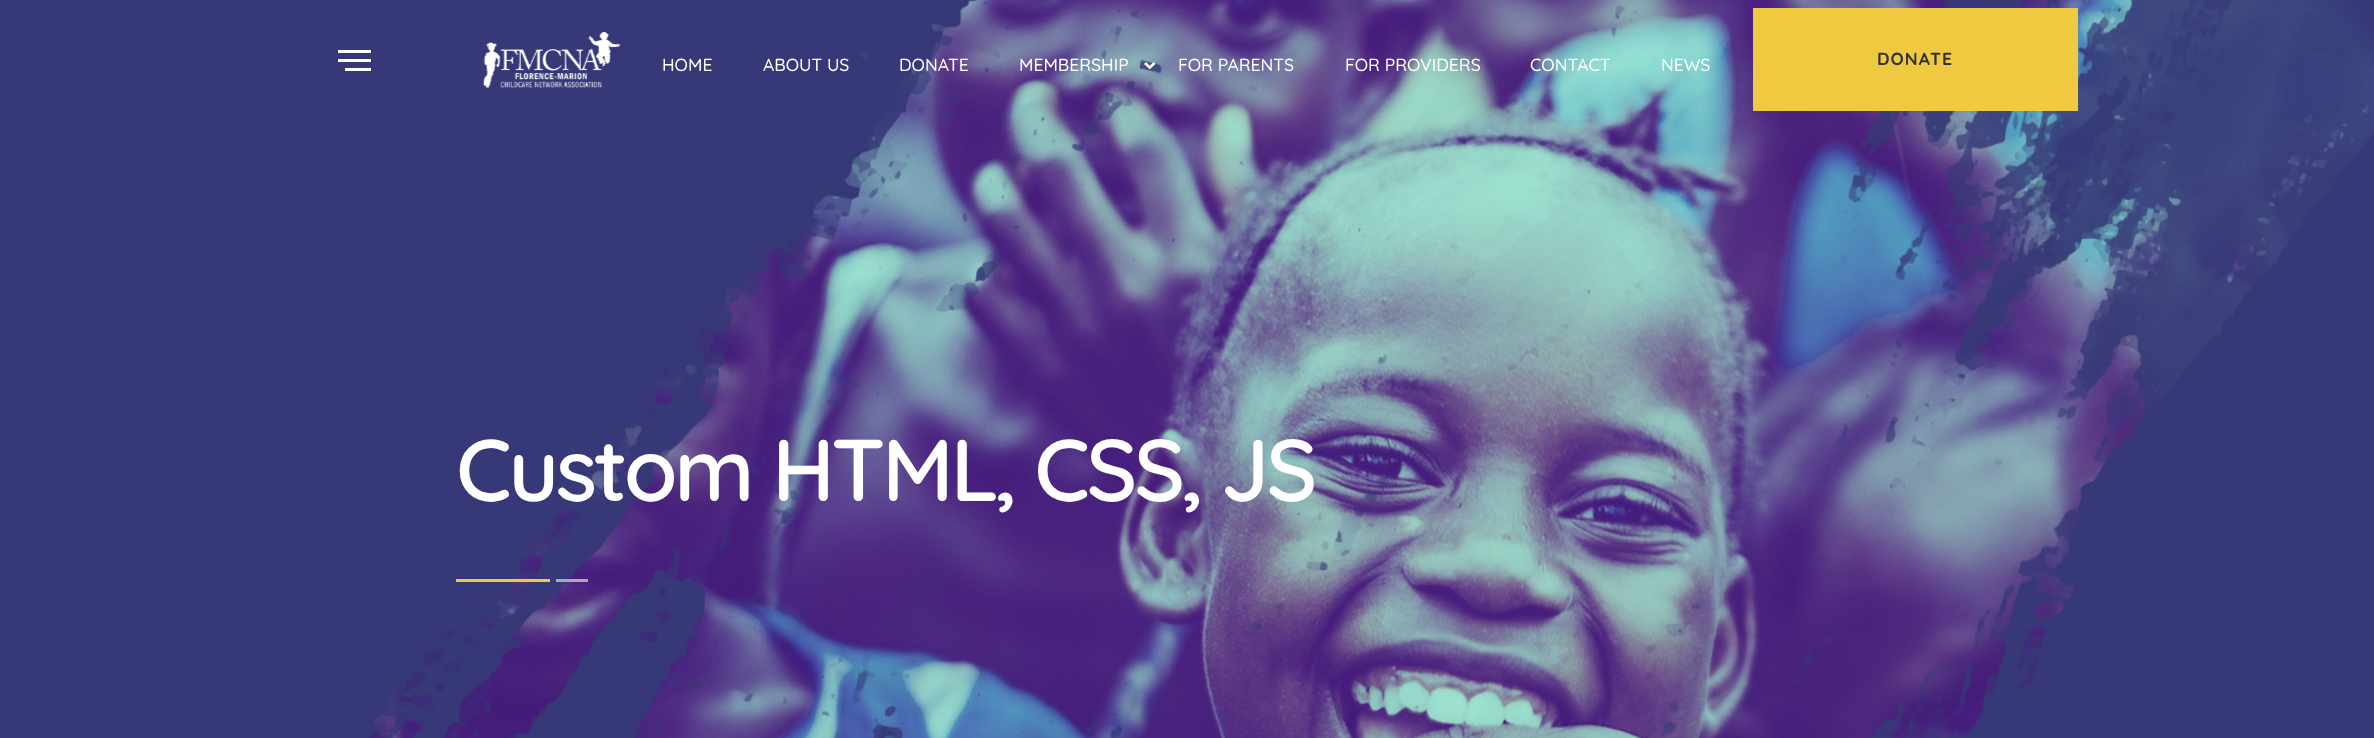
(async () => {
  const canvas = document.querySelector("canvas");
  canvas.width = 2374;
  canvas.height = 738;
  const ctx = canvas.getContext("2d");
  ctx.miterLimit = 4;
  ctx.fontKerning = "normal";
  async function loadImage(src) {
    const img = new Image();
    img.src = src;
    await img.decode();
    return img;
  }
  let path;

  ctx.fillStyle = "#ffffff";
  ctx.fillRect(0, 0, 2374, 738);
  ctx.drawImage(await loadImage("img/2.png"), 0, 0, 2374, 738);
  for (const [x, y, w, h, color] of [
    [338, 50, 33, 3, "#ffffff"],
    [338, 59, 33, 3, "#ffffff"],
    [345, 68, 26, 3, "#ffffff"],
  ]) {
    ctx.fillStyle = color;
    ctx.fillRect(x, y, w, h);
  }
  ctx.drawImage(await loadImage("img/1.png"), 483, 31, 138, 57);
  path = new Path2D("M1146 62L1151.5 67.5L1149.5 69L1144 64Z");
  ctx.fill(path);
  path = new Path2D("M1148 67.5L1153.5 62L1155.5 64L1150 69Z");
  ctx.fill(path);
  for (const [x, y, w, h, color] of [
    [1753, 8, 325, 103, "#efc940"],
    [456, 579, 94, 3, "#efc940"],
    [556, 579, 32, 3, "#aca7ba"],
  ]) {
    ctx.fillStyle = color;
    ctx.fillRect(x, y, w, h);
  }
  ctx.font = "500 17.5px Quicksand";
  ctx.fillStyle = "#ffffff";
  for (const [text, x, y] of [
    ["HOME", 662, 71],
    ["ABOUT US", 763, 71],
    ["DONATE", 899, 71],
    ["MEMBERSHIP", 1019, 71],
    ["FOR PARENTS", 1178, 71],
    ["FOR PROVIDERS", 1345, 71],
    ["CONTACT", 1530, 71],
    ["NEWS", 1661, 71],
  ]) {
    ctx.fillText(text, x, y);
  }
  ctx.letterSpacing = "1px";
  ctx.font = "bold 17.5px Quicksand";
  ctx.fillStyle = "#333333";
  ctx.fillText("DONATE", 1877, 65);
  ctx.letterSpacing = "-3.5px";
  ctx.font = "600 87.5px Quicksand";
  ctx.fillStyle = "#ffffff";
  ctx.fillText("Custom HTML, CSS, JS", 456, 501);
})();
